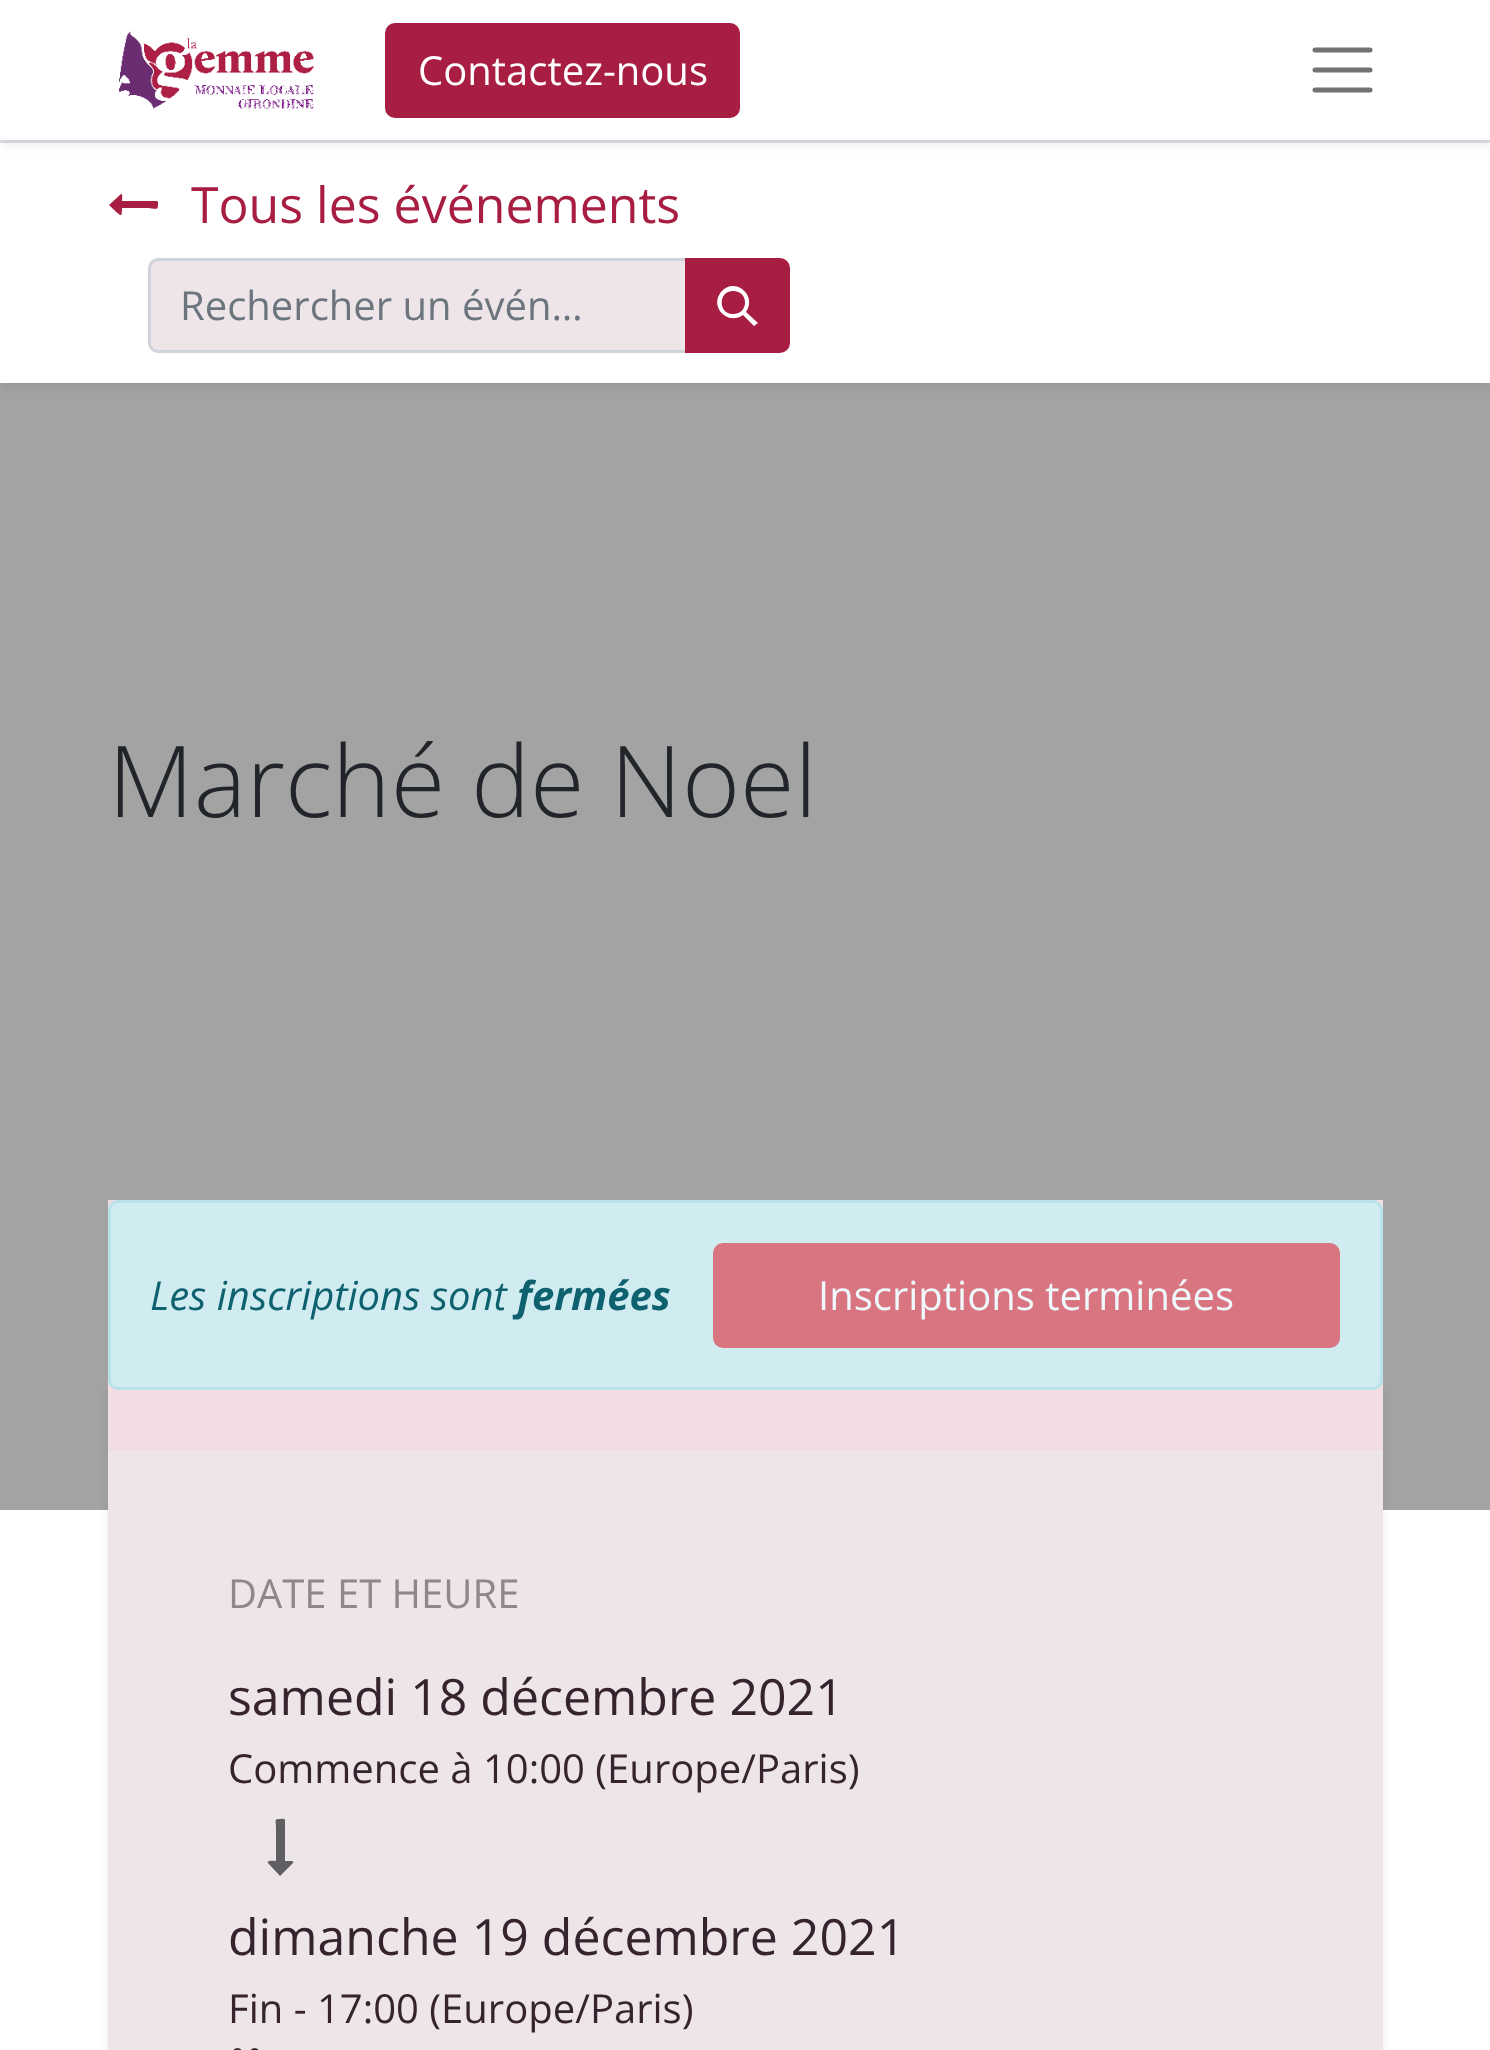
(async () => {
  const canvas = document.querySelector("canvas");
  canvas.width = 1490;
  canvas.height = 2050;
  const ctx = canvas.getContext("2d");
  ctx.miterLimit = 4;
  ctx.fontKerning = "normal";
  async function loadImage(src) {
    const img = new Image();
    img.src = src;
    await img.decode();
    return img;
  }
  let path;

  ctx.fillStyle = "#ffffff";
  ctx.fillRect(0, 0, 1490, 2050);
  ctx.fillStyle = "rgba(0, 0, 0, 0.07)";
  ctx.filter = "blur(5px)";
  ctx.beginPath();
  ctx.rect(0, 145, 1490, 243);
  ctx.fill();
  ctx.filter = "none";
  ctx.fillStyle = "#ffffff";
  ctx.fillRect(0, 143, 1490, 240);
  ctx.fillStyle = "#dee2e6";
  ctx.fillRect(0, 140, 1490, 3);
  ctx.fillStyle = "rgba(0, 0, 0, 0.07)";
  ctx.filter = "blur(5px)";
  ctx.beginPath();
  ctx.rect(0, 5, 1490, 140);
  ctx.fill();
  ctx.filter = "none";
  ctx.fillStyle = "#ffffff";
  ctx.fillRect(0, 0, 1490, 140);
  ctx.drawImage(await loadImage("img/1.png"), 119, 31, 195, 79);
  ctx.fillStyle = "#a81d42";
  ctx.beginPath();
  ctx.roundRect(386.5, 24.5, 352, 92, 8.5);
  ctx.fill();
  ctx.strokeStyle = "#a81d42";
  ctx.lineWidth = 3;
  ctx.stroke();
  path = new Path2D("M1315 50H1370M1315 70H1370M1315 90H1370");
  ctx.strokeStyle = "#737373";
  ctx.lineWidth = 5;
  ctx.lineCap = "round";
  ctx.stroke(path);
  path = new Path2D("M158 202C158 212 158 208 145 208H122C122 209 122 215 121 215C120 216 109 205 109 205L121 194C123 193 122 200 122 201H157Z");
  ctx.fill(path);
  ctx.fillStyle = "#eee5e9";
  ctx.beginPath();
  ctx.roundRect(149.5, 259.5, 537, 92, [8.5, 0, 0, 8.5]);
  ctx.fill();
  ctx.strokeStyle = "#ced4da";
  ctx.lineWidth = 3;
  ctx.stroke();
  ctx.fillStyle = "#a81d42";
  ctx.beginPath();
  ctx.roundRect(686.5, 259.5, 102, 92, [0, 8.5, 8.5, 0]);
  ctx.fill();
  ctx.strokeStyle = "#a81d42";
  ctx.stroke();
  ctx.fillStyle = "#ffffff";
  path = new Path2D("M721 292C734 276 758 295 746 312L758 323L754 326L743 315C728 326 709 307 721 292ZM733 291C718 291 718 314 733 314C749 314 749 291 733 291Z");
  ctx.fill(path);
  ctx.fillStyle = "rgba(0, 0, 0, 0.36)";
  ctx.fillRect(0, 383, 1490, 1127);
  ctx.fillStyle = "#f2dde3";
  ctx.fillRect(108, 1200, 1275, 190);
  ctx.fillStyle = "#d1ecf1";
  ctx.beginPath();
  ctx.roundRect(109.5, 1201.5, 1272, 187, 8.5);
  ctx.fill();
  ctx.strokeStyle = "#b9e3ea";
  ctx.stroke();
  ctx.fillStyle = "#d87581";
  ctx.beginPath();
  ctx.roundRect(714.5, 1244.5, 624, 102, 8.5);
  ctx.fill();
  ctx.strokeStyle = "#d87581";
  ctx.stroke();
  ctx.save();
  ctx.beginPath();
  ctx.rect(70, 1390, 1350, 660);
  ctx.clip();
  ctx.fillStyle = "rgba(0, 0, 0, 0.07)";
  ctx.filter = "blur(5px)";
  ctx.beginPath();
  ctx.rect(108, 1335, 1275, 120);
  ctx.fill();
  ctx.filter = "none";
  ctx.restore();
  ctx.fillStyle = "#f2dde3";
  ctx.fillRect(108, 1390, 1275, 60);
  ctx.fillStyle = "rgba(0, 0, 0, 0.07)";
  ctx.filter = "blur(5px)";
  ctx.beginPath();
  ctx.rect(108, 1455, 1275, 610);
  ctx.fill();
  ctx.filter = "none";
  ctx.fillStyle = "#eee5e9";
  ctx.fillRect(108, 1450, 1275, 600);
  ctx.fillStyle = "#5f5f63";
  path = new Path2D("M292 1861C293 1861 294 1863 293 1863L280 1876L268 1863C266 1860 275 1861 276 1861V1827C276 1821 274 1819 279 1819C280 1819 285 1818 285 1820V1861Z");
  ctx.fill(path);
  ctx.drawImage(await loadImage("img/2.png"), 233, 2048, 26, 2);
  ctx.font = "40px Open Sans";
  ctx.fillStyle = "#ffffff";
  ctx.fillText("Contactez-nous", 418, 85);
  ctx.font = "50px Open Sans";
  ctx.fillStyle = "#a81d42";
  ctx.fillText("Tous les événements", 191, 223);
  ctx.font = "40px Open Sans";
  ctx.fillStyle = "#6c757d";
  ctx.fillText("Rechercher un évén…", 180, 320);
  ctx.font = "300 99.25px Open Sans";
  ctx.fillStyle = "#212529";
  ctx.fillText("Marché de Noel", 108, 817);
  ctx.font = "italic 40px Open Sans";
  ctx.fillStyle = "#0e616e";
  ctx.fillText("Les inscriptions sont", 150, 1310);
  ctx.font = "italic bold 40px Open Sans";
  ctx.fillText("fermées", 517, 1310);
  ctx.font = "40px Open Sans";
  ctx.fillStyle = "#eff8fa";
  ctx.fillText("Inscriptions terminées", 818, 1310);
  ctx.fillStyle = "#92858b";
  ctx.fillText("DATE ET HEURE", 228, 1608);
  ctx.font = "50px Open Sans";
  ctx.fillStyle = "#35242d";
  ctx.fillText("samedi 18 décembre 2021", 228, 1715);
  ctx.font = "40px Open Sans";
  ctx.fillText("Commence à 10:00 (Europe/Paris)", 228, 1783);
  ctx.font = "50px Open Sans";
  ctx.fillText("dimanche 19 décembre 2021", 228, 1955);
  ctx.font = "40px Open Sans";
  ctx.fillText("Fin - 17:00 (Europe/Paris)", 228, 2023);
})();
